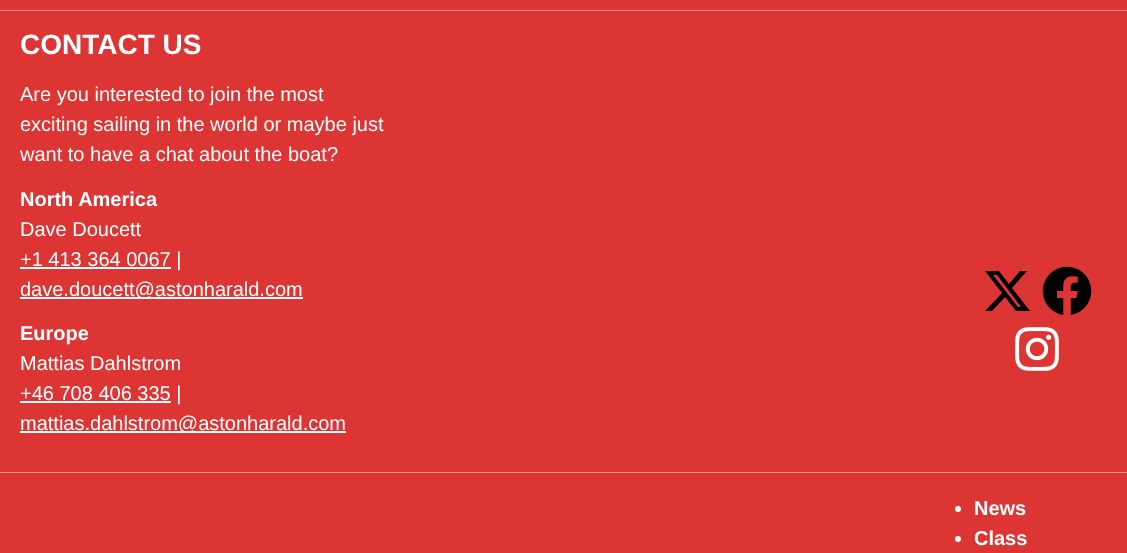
(async () => {
  const canvas = document.querySelector("canvas");
  canvas.width = 1127;
  canvas.height = 553;
  const ctx = canvas.getContext("2d");
  ctx.miterLimit = 4;
  ctx.fontKerning = "normal";
  async function loadImage(src) {
    const img = new Image();
    img.src = src;
    await img.decode();
    return img;
  }
  let path;

  ctx.fillStyle = "#dd3434";
  ctx.fillRect(0, 0, 1127, 553);
  for (const [x, y, w, h, color] of [
    [0, 10, 1127, 1, "#ed9393"],
    [0, 472, 1127, 1, "#ed9393"],
    [20, 267, 151, 2, "#ffffff"],
    [20, 297, 283, 2, "#ffffff"],
    [20, 401, 151, 2, "#ffffff"],
    [20, 431, 326, 2, "#ffffff"],
  ]) {
    ctx.fillStyle = color;
    ctx.fillRect(x, y, w, h);
  }
  ctx.fillStyle = "#000000";
  path = new Path2D("M1020 271H1027L1012 288L1030 311H1016L1005 297L992 311H985L1002 293L985 271H999L1009 284ZM1018 307H1021L997 275H993Z");
  ctx.fill(path);
  ctx.drawImage(await loadImage("img/1.png"), 1042, 266, 50, 49);
  ctx.drawImage(await loadImage("img/2.png"), 1015, 327, 44, 44);
  ctx.fillStyle = "#ffffff";
  ctx.beginPath();
  ctx.arc(958, 509, 3, 0, Math.PI * 2);
  ctx.fill();
  ctx.beginPath();
  ctx.arc(958, 539, 3, 0, Math.PI * 2);
  ctx.fill();
  ctx.font = "bold 28px Liberation Sans";
  ctx.fillText("CONTACT US", 20, 54);
  ctx.font = "20px Liberation Sans";
  for (const [text, x, y] of [
    ["Are you interested to join the most", 20, 101],
    ["exciting sailing in the world or maybe just", 20, 131],
    ["want to have a chat about the boat?", 20, 161],
  ]) {
    ctx.fillText(text, x, y);
  }
  ctx.font = "bold 20px Liberation Sans";
  ctx.fillText("North America", 20, 206);
  ctx.font = "20px Liberation Sans";
  for (const [text, x, y] of [
    ["Dave Doucett", 20, 236],
    ["+1 413 364 0067 |", 20, 266],
    ["dave.doucett@astonharald.com", 20, 296],
  ]) {
    ctx.fillText(text, x, y);
  }
  ctx.font = "bold 20px Liberation Sans";
  ctx.fillText("Europe", 20, 340);
  ctx.font = "20px Liberation Sans";
  for (const [text, x, y] of [
    ["Mattias Dahlstrom", 20, 370],
    ["+46 708 406 335 |", 20, 400],
    ["mattias.dahlstrom@astonharald.com", 20, 430],
  ]) {
    ctx.fillText(text, x, y);
  }
  ctx.font = "bold 20px Liberation Sans";
  ctx.fillText("News", 974, 515);
  ctx.fillText("Class", 974, 545);
})();
